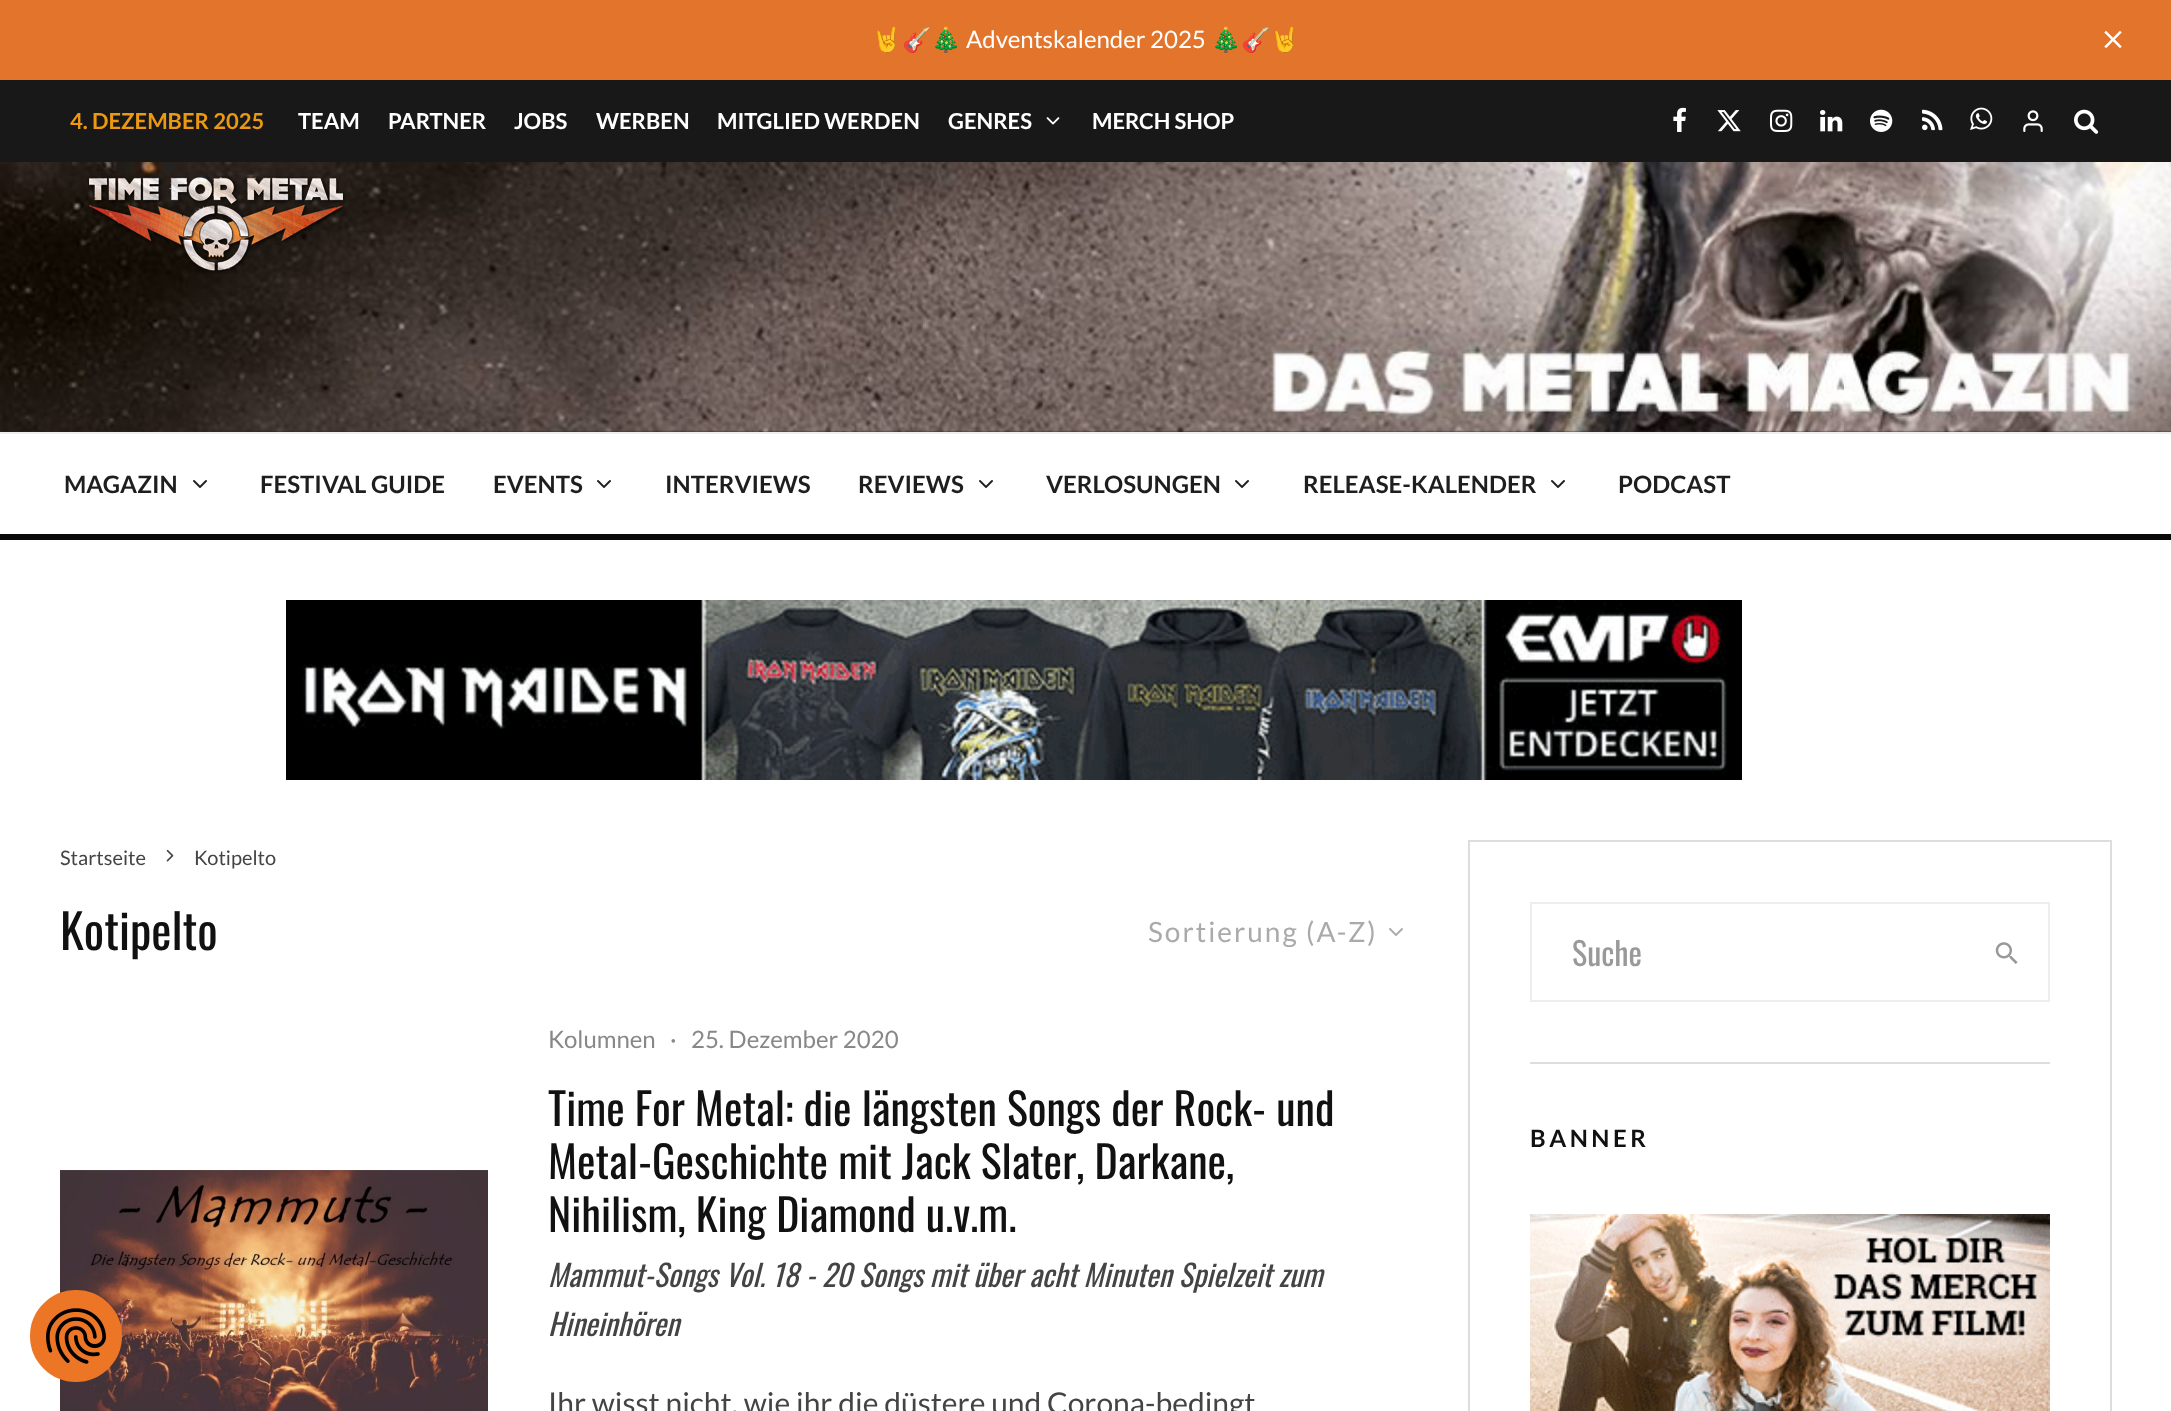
(async () => {
  const canvas = document.querySelector("canvas");
  canvas.width = 2171;
  canvas.height = 1411;
  const ctx = canvas.getContext("2d");
  ctx.miterLimit = 4;
  ctx.fontKerning = "normal";
  async function loadImage(src) {
    const img = new Image();
    img.src = src;
    await img.decode();
    return img;
  }

  ctx.fillStyle = "#272727";
  ctx.fillRect(0, 0, 2171, 1411);
  ctx.fillStyle = "#e2752b";
  ctx.fillRect(0, 0, 2171, 80);
  ctx.drawImage(await loadImage("img/1.png"), 2104, 30, 18, 19);
  ctx.fillStyle = "#181818";
  ctx.fillRect(0, 80, 2171, 82);
  ctx.drawImage(await loadImage("img/2.png"), 1046, 117, 14, 8);
  ctx.drawImage(await loadImage("img/3.png"), 1673, 107, 13, 25);
  ctx.drawImage(await loadImage("img/4.png"), 1717, 110, 24, 22);
  ctx.drawImage(await loadImage("img/5.png"), 1770, 109, 23, 23);
  ctx.drawImage(await loadImage("img/6.png"), 1820, 110, 23, 22);
  ctx.drawImage(await loadImage("img/7.png"), 1870, 109, 23, 23);
  ctx.drawImage(await loadImage("img/8.png"), 1922, 109, 21, 22);
  ctx.drawImage(await loadImage("img/9.png"), 1970, 107, 23, 23);
  ctx.drawImage(await loadImage("img/10.png"), 2023, 110, 20, 22);
  ctx.drawImage(await loadImage("img/11.png"), 2074, 109, 25, 25);
  ctx.drawImage(await loadImage("img/12.png"), 0, 162, 2171, 270);
  ctx.drawImage(await loadImage("img/13.png"), 88, 176, 258, 98);
  for (const [x, y, w, h, color] of [
    [0, 434, 2171, 100, "#ffffff"],
    [0, 432, 2171, 2, "#eeeeee"],
    [0, 534, 2171, 6, "#0a0a0a"],
  ]) {
    ctx.fillStyle = color;
    ctx.fillRect(x, y, w, h);
  }
  ctx.drawImage(await loadImage("img/14.png"), 193, 480, 14, 8);
  ctx.drawImage(await loadImage("img/14.png"), 597, 480, 14, 8);
  ctx.drawImage(await loadImage("img/14.png"), 979, 480, 14, 8);
  ctx.drawImage(await loadImage("img/14.png"), 1235, 480, 14, 8);
  ctx.drawImage(await loadImage("img/14.png"), 1551, 480, 14, 8);
  ctx.fillStyle = "#ffffff";
  ctx.fillRect(0, 540, 2171, 871);
  ctx.drawImage(await loadImage("img/15.png"), 286, 600, 1456, 180);
  ctx.drawImage(await loadImage("img/16.png"), 166, 849, 8, 13);
  ctx.drawImage(await loadImage("img/17.png"), 1389, 928, 14, 8);
  ctx.drawImage(await loadImage("img/18.png"), 60, 1170, 428, 241);
  ctx.strokeStyle = "#dddddd";
  ctx.lineWidth = 2;
  ctx.strokeRect(1469, 841, 642, 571);
  ctx.fillStyle = "#dddddd";
  ctx.fillRect(1530, 1062, 520, 2);
  ctx.strokeStyle = "#eeeeee";
  ctx.strokeRect(1531, 903, 518, 98);
  ctx.drawImage(await loadImage("img/19.png"), 1995, 942, 23, 22);
  ctx.drawImage(await loadImage("img/20.png"), 1530, 1214, 520, 197);
  ctx.fillStyle = "#ec7626";
  ctx.beginPath();
  ctx.arc(76, 1336, 45, 0, Math.PI * 2);
  ctx.fill();
  ctx.strokeStyle = "#ec7626";
  ctx.stroke();
  ctx.drawImage(await loadImage("img/21.png"), 46, 1308, 60, 56);
  ctx.font = "24px Noto Color Emoji";
  ctx.fillStyle = "#ffffff";
  ctx.fillText("🤘🎸🎄", 872, 48);
  ctx.font = "24px Lato";
  ctx.fillText("Adventskalender 2025", 966, 48);
  ctx.font = "24px Noto Color Emoji";
  ctx.fillText("🎄🎸🤘", 1211, 48);
  ctx.font = "bold 22px Lato";
  ctx.fillStyle = "#eb9812";
  ctx.fillText("4. DEZEMBER 2025", 70, 129);
  ctx.fillStyle = "#ffffff";
  for (const [text, x, y] of [
    ["TEAM", 298, 129],
    ["PARTNER", 388, 129],
    ["JOBS", 514, 129],
    ["WERBEN", 596, 129],
    ["MITGLIED WERDEN", 717, 129],
    ["GENRES", 948, 129],
    ["MERCH SHOP", 1092, 129],
  ]) {
    ctx.fillText(text, x, y);
  }
  ctx.font = "bold 24px Lato";
  ctx.fillStyle = "#1e1e1e";
  for (const [text, x, y] of [
    ["MAGAZIN", 64, 493],
    ["FESTIVAL GUIDE", 260, 493],
    ["EVENTS", 493, 493],
    ["INTERVIEWS", 665, 493],
    ["REVIEWS", 858, 493],
    ["VERLOSUNGEN", 1046, 493],
    ["RELEASE-KALENDER", 1303, 493],
    ["PODCAST", 1618, 493],
  ]) {
    ctx.fillText(text, x, y);
  }
  ctx.font = "20px Lato";
  ctx.fillStyle = "#444444";
  ctx.fillText("Startseite", 60, 865);
  ctx.fillText("Kotipelto", 194, 865);
  ctx.font = "48px Oswald";
  ctx.fillStyle = "#111111";
  ctx.fillText("Kotipelto", 60, 950);
  ctx.letterSpacing = "2px";
  ctx.font = "28px Lato";
  ctx.fillStyle = "#aaaaaa";
  ctx.fillText("Sortierung (A-Z)", 1148, 942);
  ctx.letterSpacing = "0px";
  ctx.font = "24px Lato";
  ctx.fillStyle = "#888888";
  for (const [text, x, y] of [
    ["Kolumnen", 548, 1048],
    ["·", 670, 1048],
    ["25. Dezember 2020", 691, 1048],
  ]) {
    ctx.fillText(text, x, y);
  }
  ctx.font = "44px Oswald";
  ctx.fillStyle = "#111111";
  for (const [text, x, y] of [
    ["Time For Metal: die längsten Songs der Rock- und", 548, 1126],
    ["Metal-Geschichte mit Jack Slater, Darkane,", 548, 1179],
    ["Nihilism, King Diamond u.v.m.", 548, 1232],
  ]) {
    ctx.fillText(text, x, y);
  }
  ctx.font = "italic 30px Oswald";
  ctx.fillStyle = "#444444";
  ctx.fillText("Mammut-Songs Vol. 18 - 20 Songs mit über acht Minuten Spielzeit zum", 548, 1287);
  ctx.fillText("Hineinhören", 548, 1336);
  ctx.font = "30px Lato";
  ctx.fillText("Ihr wisst nicht, wie ihr die düstere und Corona-bedingt", 548, 1414);
  ctx.font = "32px Oswald";
  ctx.fillStyle = "#999999";
  ctx.fillText("Suche", 1572, 966);
  ctx.letterSpacing = "3.5px";
  ctx.font = "bold 24px Lato";
  ctx.fillStyle = "#111111";
  ctx.fillText("BANNER", 1530, 1147);
})();
